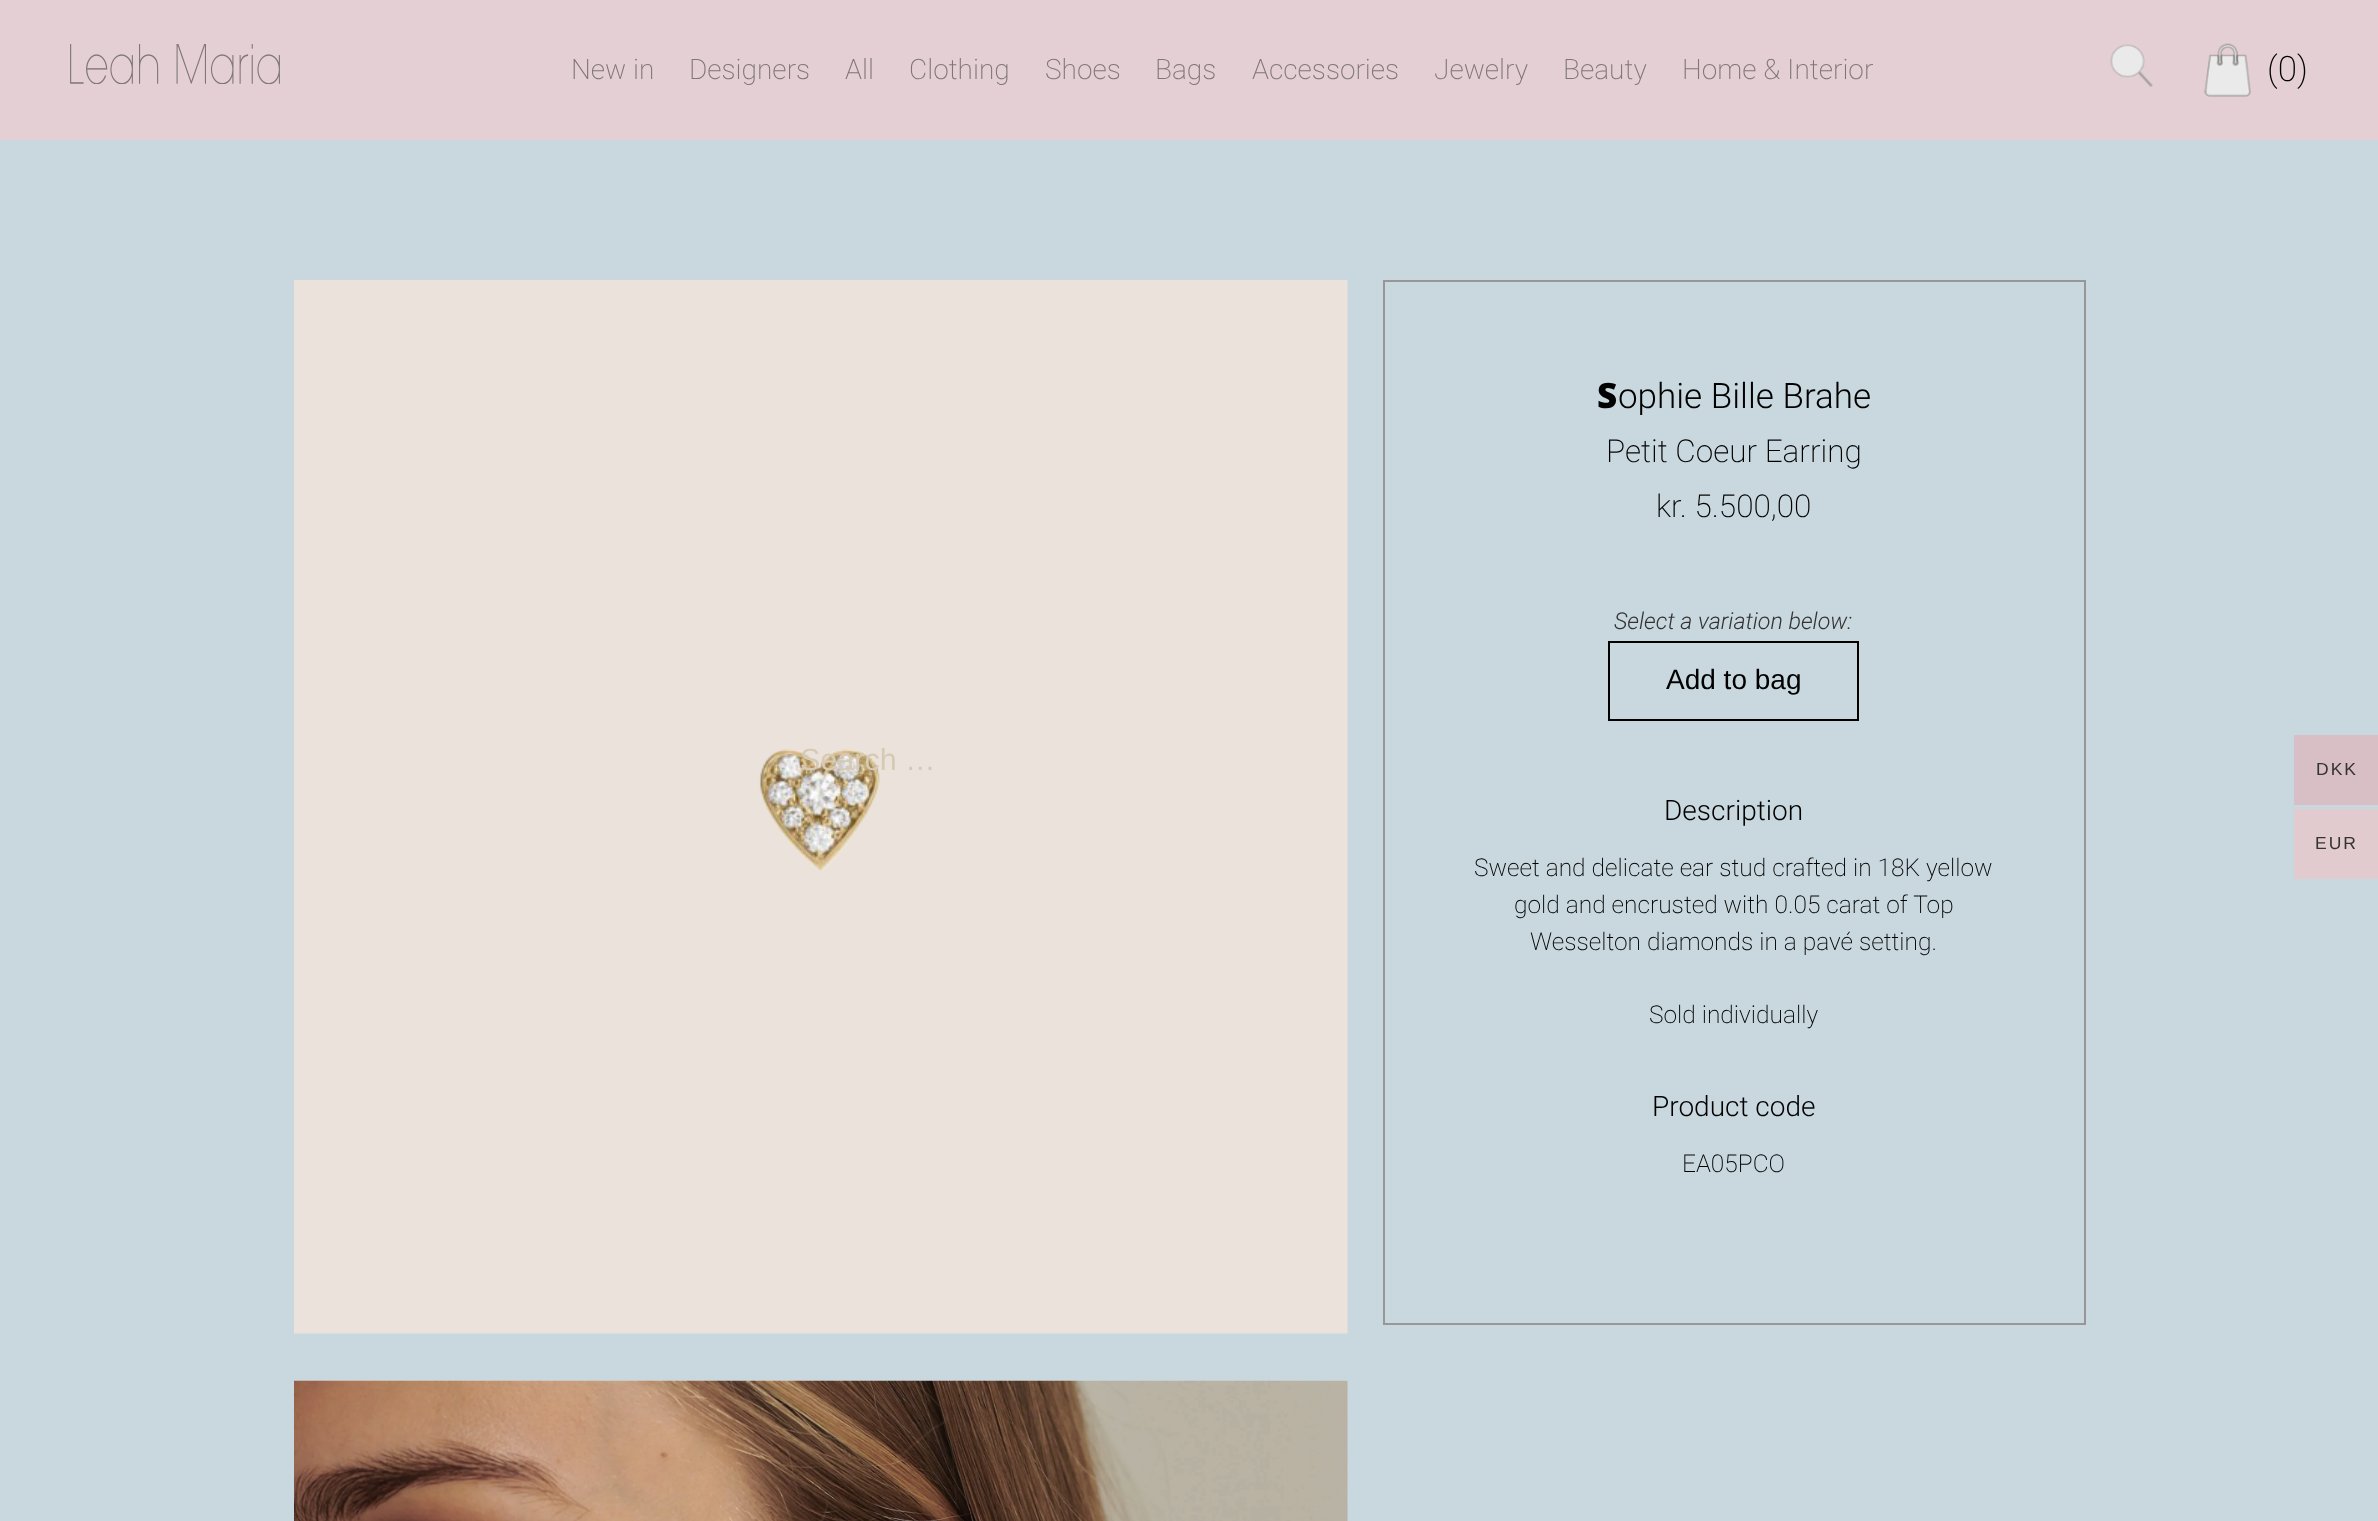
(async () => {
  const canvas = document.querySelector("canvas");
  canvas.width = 2378;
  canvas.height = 1521;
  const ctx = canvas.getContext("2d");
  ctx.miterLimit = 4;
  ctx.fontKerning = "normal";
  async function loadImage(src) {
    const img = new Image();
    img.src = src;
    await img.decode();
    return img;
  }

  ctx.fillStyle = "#c9d8de";
  ctx.fillRect(0, 0, 2378, 1521);
  ctx.fillStyle = "#e4d0d4";
  ctx.fillRect(0, 0, 2378, 140);
  ctx.drawImage(await loadImage("img/1.png"), 70, 44, 210, 40);
  ctx.drawImage(await loadImage("img/2.png"), 2204, 43, 47, 54);
  ctx.drawImage(await loadImage("img/3.png"), 2110, 44, 43, 43);
  ctx.drawImage(await loadImage("img/4.png"), 294, 280, 1054, 1054);
  ctx.drawImage(await loadImage("img/5.png"), 294, 1380, 1054, 141);
  ctx.strokeStyle = "#979797";
  ctx.lineWidth = 2;
  ctx.strokeRect(1384, 281, 701, 1043);
  ctx.strokeStyle = "#000000";
  ctx.strokeRect(1609, 642, 249, 78);
  ctx.fillStyle = "#d8bfc5";
  ctx.fillRect(2294, 735, 84, 70);
  ctx.fillStyle = "#e1cbce";
  ctx.fillRect(2294, 809, 84, 70);
  ctx.font = "200 35px Roboto";
  ctx.fillStyle = "#000000";
  ctx.fillText("(0)", 2267, 81);
  ctx.font = "30.5px Liberation Sans";
  ctx.fillStyle = "#d7cab4";
  ctx.fillText("Search …", 800, 770);
  ctx.font = "200 28px Roboto";
  ctx.fillStyle = "#807678";
  for (const [text, x, y] of [
    ["New in", 571, 79],
    ["Designers", 689, 79],
    ["All", 845, 79],
    ["Clothing", 909, 79],
    ["Shoes", 1045, 79],
    ["Bags", 1155, 79],
    ["Accessories", 1252, 79],
    ["Jewelry", 1434, 79],
    ["Beauty", 1563, 79],
    ["Home & Interior", 1682, 79],
  ]) {
    ctx.fillText(text, x, y);
  }
  ctx.font = "900 35px Noto Sans";
  ctx.fillStyle = "#000000";
  ctx.fillText("S", 1597, 408);
  ctx.font = "300 35px Roboto";
  ctx.fillText("ophie Bille Brahe", 1618, 408);
  ctx.font = "200 31.5px Roboto";
  ctx.fillText("Petit Coeur Earring", 1606, 462);
  ctx.fillText("kr. 5.500,00", 1656, 517);
  ctx.font = "italic 300 23.25px Roboto";
  ctx.fillStyle = "#333333";
  ctx.fillText("Select a variation below:", 1614, 629);
  ctx.font = "28px Liberation Sans";
  ctx.fillStyle = "#000000";
  ctx.fillText("Add to bag", 1666, 689);
  ctx.font = "300 28px Roboto";
  ctx.fillText("Description", 1664, 820);
  ctx.font = "200 24.5px Roboto";
  for (const [text, x, y] of [
    ["Sweet and delicate ear stud crafted in 18K yellow", 1474, 876],
    ["gold and encrusted with 0.05 carat of Top", 1514, 913],
    ["Wesselton diamonds in a pavé setting.", 1530, 950],
    ["Sold individually", 1649, 1023],
  ]) {
    ctx.fillText(text, x, y);
  }
  ctx.font = "300 28px Roboto";
  ctx.fillText("Product code", 1652, 1116);
  ctx.font = "200 24.5px Roboto";
  ctx.fillText("EA05PCO", 1682, 1172);
  ctx.letterSpacing = "2px";
  ctx.font = "17.5px Liberation Sans";
  ctx.fillStyle = "#333333";
  ctx.fillText("DKK", 2316, 775);
  ctx.fillText("EUR", 2315, 849);
})();
